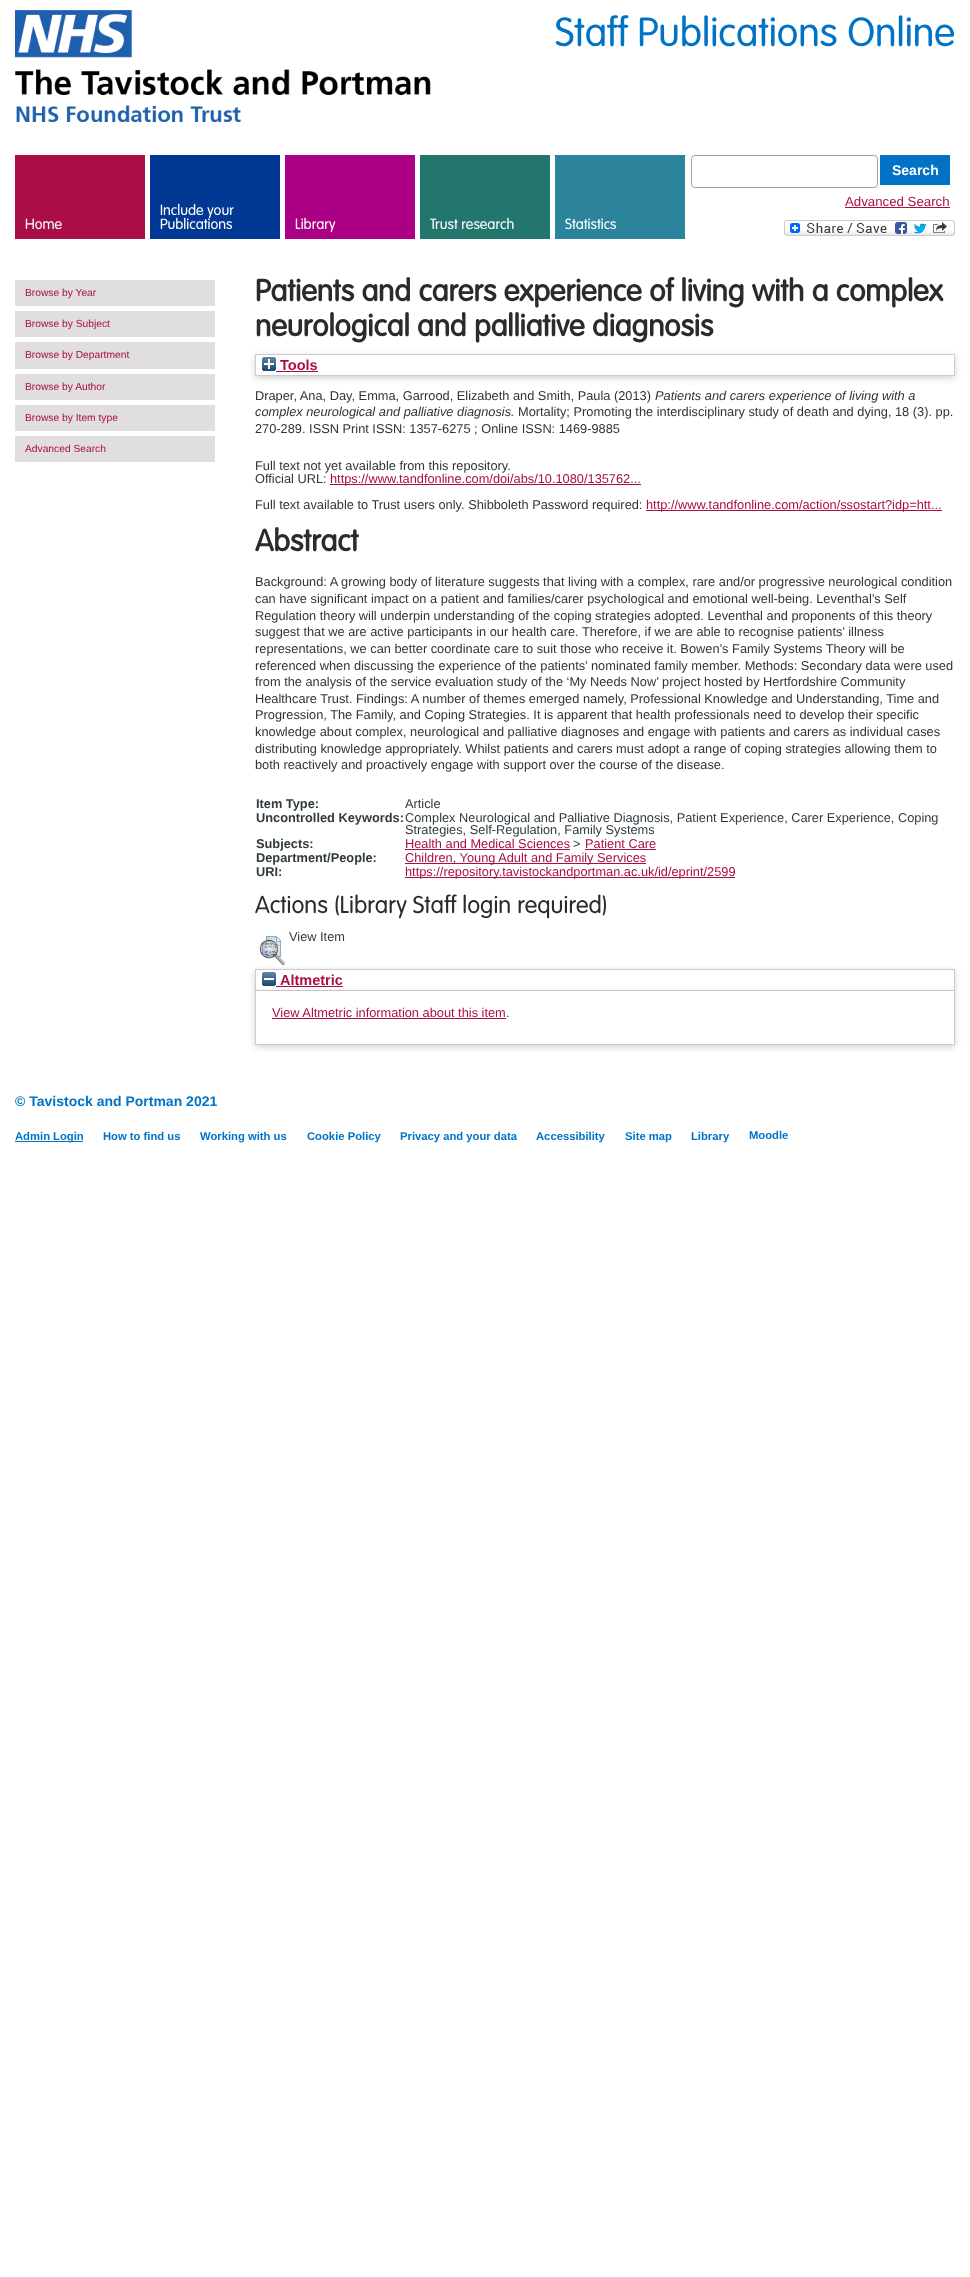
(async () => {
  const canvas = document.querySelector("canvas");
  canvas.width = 970;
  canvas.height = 2277;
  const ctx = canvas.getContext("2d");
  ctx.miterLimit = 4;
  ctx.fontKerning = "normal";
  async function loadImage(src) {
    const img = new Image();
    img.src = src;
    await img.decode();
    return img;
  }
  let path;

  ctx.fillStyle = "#ffffff";
  ctx.fillRect(0, 0, 970, 2277);
  ctx.drawImage(await loadImage("img/1.png"), 15, 10, 416, 112);
  ctx.beginPath();
  ctx.roundRect(691.5, 155.5, 186, 32, 3.5);
  ctx.strokeStyle = "#a3a3a3";
  ctx.stroke();
  ctx.fillStyle = "#0073c6";
  ctx.fillRect(880, 155, 70, 30);
  ctx.fillStyle = "#a90e47";
  ctx.fillRect(845, 207, 105, 1);
  ctx.drawImage(await loadImage("img/2.png"), 784, 220, 171, 16);
  for (const [x, y, w, h, color] of [
    [15, 155, 130, 84, "#a90e47"],
    [150, 155, 130, 84, "#013893"],
    [285, 155, 130, 84, "#ab0086"],
    [420, 155, 130, 84, "#22766d"],
    [555, 155, 130, 84, "#2c849c"],
    [15, 280, 200, 26, "#e0dede"],
    [15, 311, 200, 26, "#e0dede"],
    [15, 342, 200, 27, "#e0dede"],
    [15, 374, 200, 26, "#e0dede"],
    [15, 405, 200, 26, "#e0dede"],
    [15, 436, 200, 26, "#e0dede"],
  ]) {
    ctx.fillStyle = color;
    ctx.fillRect(x, y, w, h);
  }
  ctx.save();
  path = new Path2D("M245 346H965V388H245ZM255 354H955V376H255Z");
  ctx.clip(path, "evenodd");
  ctx.fillStyle = "rgba(100, 100, 100, 0.3)";
  ctx.filter = "blur(3px)";
  ctx.beginPath();
  ctx.rect(255, 356, 700, 22);
  ctx.fill();
  ctx.filter = "none";
  ctx.restore();
  ctx.strokeStyle = "#cccccc";
  ctx.strokeRect(255.5, 354.5, 699, 21);
  ctx.drawImage(await loadImage("img/3.png"), 262, 357, 14, 14);
  for (const [x, y, w, h, color] of [
    [276, 371, 42, 1, "#a90e47"],
    [330, 484, 311, 1, "#a90e47"],
    [646, 510, 296, 1, "#a90e47"],
    [405, 849, 165, 1, "#a90e47"],
    [585, 849, 71, 1, "#a90e47"],
    [405, 863, 241, 1, "#a90e47"],
    [405, 877, 330, 1, "#a90e47"],
  ]) {
    ctx.fillStyle = color;
    ctx.fillRect(x, y, w, h);
  }
  ctx.save();
  path = new Path2D("M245 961H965V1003H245ZM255 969H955V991H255Z");
  ctx.clip(path, "evenodd");
  ctx.fillStyle = "rgba(100, 100, 100, 0.3)";
  ctx.filter = "blur(3px)";
  ctx.beginPath();
  ctx.rect(255, 971, 700, 22);
  ctx.fill();
  ctx.filter = "none";
  ctx.restore();
  ctx.drawImage(await loadImage("img/4.png"), 259, 936, 26, 29);
  ctx.strokeRect(255.5, 969.5, 699, 21);
  ctx.fillStyle = "rgba(100, 100, 100, 0.3)";
  ctx.filter = "blur(3px)";
  ctx.beginPath();
  ctx.rect(255, 993, 700, 54);
  ctx.fill();
  ctx.filter = "none";
  ctx.drawImage(await loadImage("img/5.png"), 262, 972, 14, 14);
  for (const [x, y, w, h, color] of [
    [276, 986, 67, 1, "#a90e47"],
    [256, 991, 698, 53, "#ffffff"],
    [954, 991, 1, 54, "#cccccc"],
    [255, 1044, 700, 1, "#cccccc"],
    [255, 991, 1, 54, "#cccccc"],
    [272, 1018, 234, 1, "#a90e47"],
    [15, 1141, 68, 1, "#0073c6"],
  ]) {
    ctx.fillStyle = color;
    ctx.fillRect(x, y, w, h);
  }
  ctx.font = "300 40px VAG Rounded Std";
  ctx.fillText("Staff Publications Online", 555, 46);
  ctx.font = "bold 14px Liberation Sans";
  ctx.fillStyle = "#ffffff";
  ctx.fillText("Search", 892, 175);
  ctx.font = "13.25px Liberation Sans";
  ctx.fillStyle = "#a90e47";
  ctx.fillText("Advanced Search", 845, 206);
  ctx.font = "300 14.5px VAG Rounded Std";
  ctx.fillStyle = "#ffffff";
  for (const [text, x, y] of [
    ["Home", 25, 229],
    ["Include your", 160, 215],
    ["Publications", 160, 229],
    ["Library", 295, 229],
    ["Trust research", 430, 229],
    ["Statistics", 565, 229],
  ]) {
    ctx.fillText(text, x, y);
  }
  ctx.font = "10.25px Liberation Sans";
  ctx.fillStyle = "#a90e47";
  for (const [text, x, y] of [
    ["Browse by Year", 25, 296],
    ["Browse by Subject", 25, 327],
    ["Browse by Department", 25, 358],
    ["Browse by Author", 25, 390],
    ["Browse by Item type", 25, 421],
    ["Advanced Search", 25, 452],
  ]) {
    ctx.fillText(text, x, y);
  }
  ctx.font = "bold 30px VAG Rounded Std";
  ctx.fillStyle = "#2b2b2b";
  ctx.fillText("Patients and carers experience of living with a complex", 255, 301);
  ctx.fillText("neurological and palliative diagnosis", 255, 336);
  ctx.font = "bold 14.5px Liberation Sans";
  ctx.fillStyle = "#a90e47";
  ctx.fillText("Tools", 280, 370);
  ctx.font = "12.8px Liberation Sans";
  ctx.fillStyle = "#333333";
  ctx.fillText("Draper, Ana, Day, Emma, Garrood, Elizabeth and Smith, Paula (2013)", 255, 400);
  ctx.font = "italic 12.8px Liberation Sans";
  ctx.fillText("Patients and carers experience of living with a", 655, 400);
  ctx.fillText("complex neurological and palliative diagnosis.", 255, 416);
  ctx.font = "12.8px Liberation Sans";
  for (const [text, x, y] of [
    ["Mortality; Promoting the interdisciplinary study of death and dying, 18 (3). pp.", 518, 416],
    ["270-289. ISSN Print ISSN: 1357-6275 ; Online ISSN: 1469-9885", 255, 433],
    ["Full text not yet available from this repository.", 255, 470],
    ["Official URL:", 255, 483],
  ]) {
    ctx.fillText(text, x, y);
  }
  ctx.fillStyle = "#a90e47";
  ctx.fillText("https://www.tandfonline.com/doi/abs/10.1080/135762...", 330, 483);
  ctx.fillStyle = "#333333";
  ctx.fillText("Full text available to Trust users only. Shibboleth Password required:", 255, 509);
  ctx.fillStyle = "#a90e47";
  ctx.fillText("http://www.tandfonline.com/action/ssostart?idp=htt...", 646, 509);
  ctx.font = "bold 30px VAG Rounded Std";
  ctx.fillStyle = "#2b2b2b";
  ctx.fillText("Abstract", 255, 551);
  ctx.font = "12.8px Liberation Sans";
  ctx.fillStyle = "#333333";
  for (const [text, x, y] of [
    ["Background: A growing body of literature suggests that living with a complex, rare and/or progressive neurological condition", 255, 586],
    ["can have significant impact on a patient and families/carer psychological and emotional well-being. Leventhal’s Self", 255, 603],
    ["Regulation theory will underpin understanding of the coping strategies adopted. Leventhal and proponents of this theory", 255, 620],
    ["suggest that we are active participants in our health care. Therefore, if we are able to recognise patients’ illness", 255, 636],
    ["representations, we can better coordinate care to suit those who receive it. Bowen’s Family Systems Theory will be", 255, 653],
    ["referenced when discussing the experience of the patients’ nominated family member. Methods: Secondary data were used", 255, 670],
    ["from the analysis of the service evaluation study of the ‘My Needs Now’ project hosted by Hertfordshire Community", 255, 686],
    ["Healthcare Trust. Findings: A number of themes emerged namely, Professional Knowledge and Understanding, Time and", 255, 703],
    ["Progression, The Family, and Coping Strategies. It is apparent that health professionals need to develop their specific", 255, 719],
    ["knowledge about complex, neurological and palliative diagnoses and engage with patients and carers as individual cases", 255, 736],
    ["distributing knowledge appropriately. Whilst patients and carers must adopt a range of coping strategies allowing them to", 255, 753],
    ["both reactively and proactively engage with support over the course of the disease.", 255, 769],
  ]) {
    ctx.fillText(text, x, y);
  }
  ctx.font = "bold 12.8px Liberation Sans";
  ctx.fillStyle = "#313a3f";
  ctx.fillText("Item Type:", 256, 808);
  ctx.font = "12.8px Liberation Sans";
  ctx.fillText("Article", 405, 808);
  ctx.font = "bold 12.8px Liberation Sans";
  ctx.fillText("Uncontrolled Keywords:", 256, 822);
  ctx.font = "12.8px Liberation Sans";
  ctx.fillText("Complex Neurological and Palliative Diagnosis, Patient Experience, Carer Experience, Coping", 405, 822);
  ctx.fillText("Strategies, Self-Regulation, Family Systems", 405, 834);
  ctx.font = "bold 12.8px Liberation Sans";
  ctx.fillText("Subjects:", 256, 848);
  ctx.font = "12.8px Liberation Sans";
  ctx.fillStyle = "#a90e47";
  ctx.fillText("Health and Medical Sciences", 405, 848);
  ctx.fillStyle = "#313a3f";
  ctx.fillText(">", 573, 848);
  ctx.fillStyle = "#a90e47";
  ctx.fillText("Patient Care", 585, 848);
  ctx.font = "bold 12.8px Liberation Sans";
  ctx.fillStyle = "#313a3f";
  ctx.fillText("Department/People:", 256, 862);
  ctx.font = "12.8px Liberation Sans";
  ctx.fillStyle = "#a90e47";
  ctx.fillText("Children, Young Adult and Family Services", 405, 862);
  ctx.font = "bold 12.8px Liberation Sans";
  ctx.fillStyle = "#313a3f";
  ctx.fillText("URI:", 256, 876);
  ctx.font = "12.8px Liberation Sans";
  ctx.fillStyle = "#a90e47";
  ctx.fillText("https://repository.tavistockandportman.ac.uk/id/eprint/2599", 405, 876);
  ctx.font = "300 24px VAG Rounded Std";
  ctx.fillStyle = "#2b2b2b";
  ctx.fillText("Actions (Library Staff login required)", 255, 913);
  ctx.font = "12.8px Liberation Sans";
  ctx.fillStyle = "#313a3f";
  ctx.fillText("View Item", 289, 941);
  ctx.font = "bold 14.5px Liberation Sans";
  ctx.fillStyle = "#a90e47";
  ctx.fillText("Altmetric", 280, 985);
  ctx.font = "12.8px Liberation Sans";
  ctx.fillText("View Altmetric information about this item", 272, 1017);
  ctx.fillStyle = "#333333";
  ctx.fillText(".", 506, 1017);
  ctx.font = "bold 14px Liberation Sans";
  ctx.fillStyle = "#0073c6";
  ctx.fillText("© Tavistock and Portman 2021", 15, 1106);
  ctx.font = "bold 11.25px Liberation Sans";
  for (const [text, x, y] of [
    ["Admin Login", 15, 1140],
    ["How to find us", 103, 1140],
    ["Working with us", 200, 1140],
    ["Cookie Policy", 307, 1140],
    ["Privacy and your data", 400, 1140],
    ["Accessibility", 536, 1140],
    ["Site map", 625, 1140],
    ["Library", 691, 1140],
    ["Moodle", 749, 1139],
  ]) {
    ctx.fillText(text, x, y);
  }
})();
